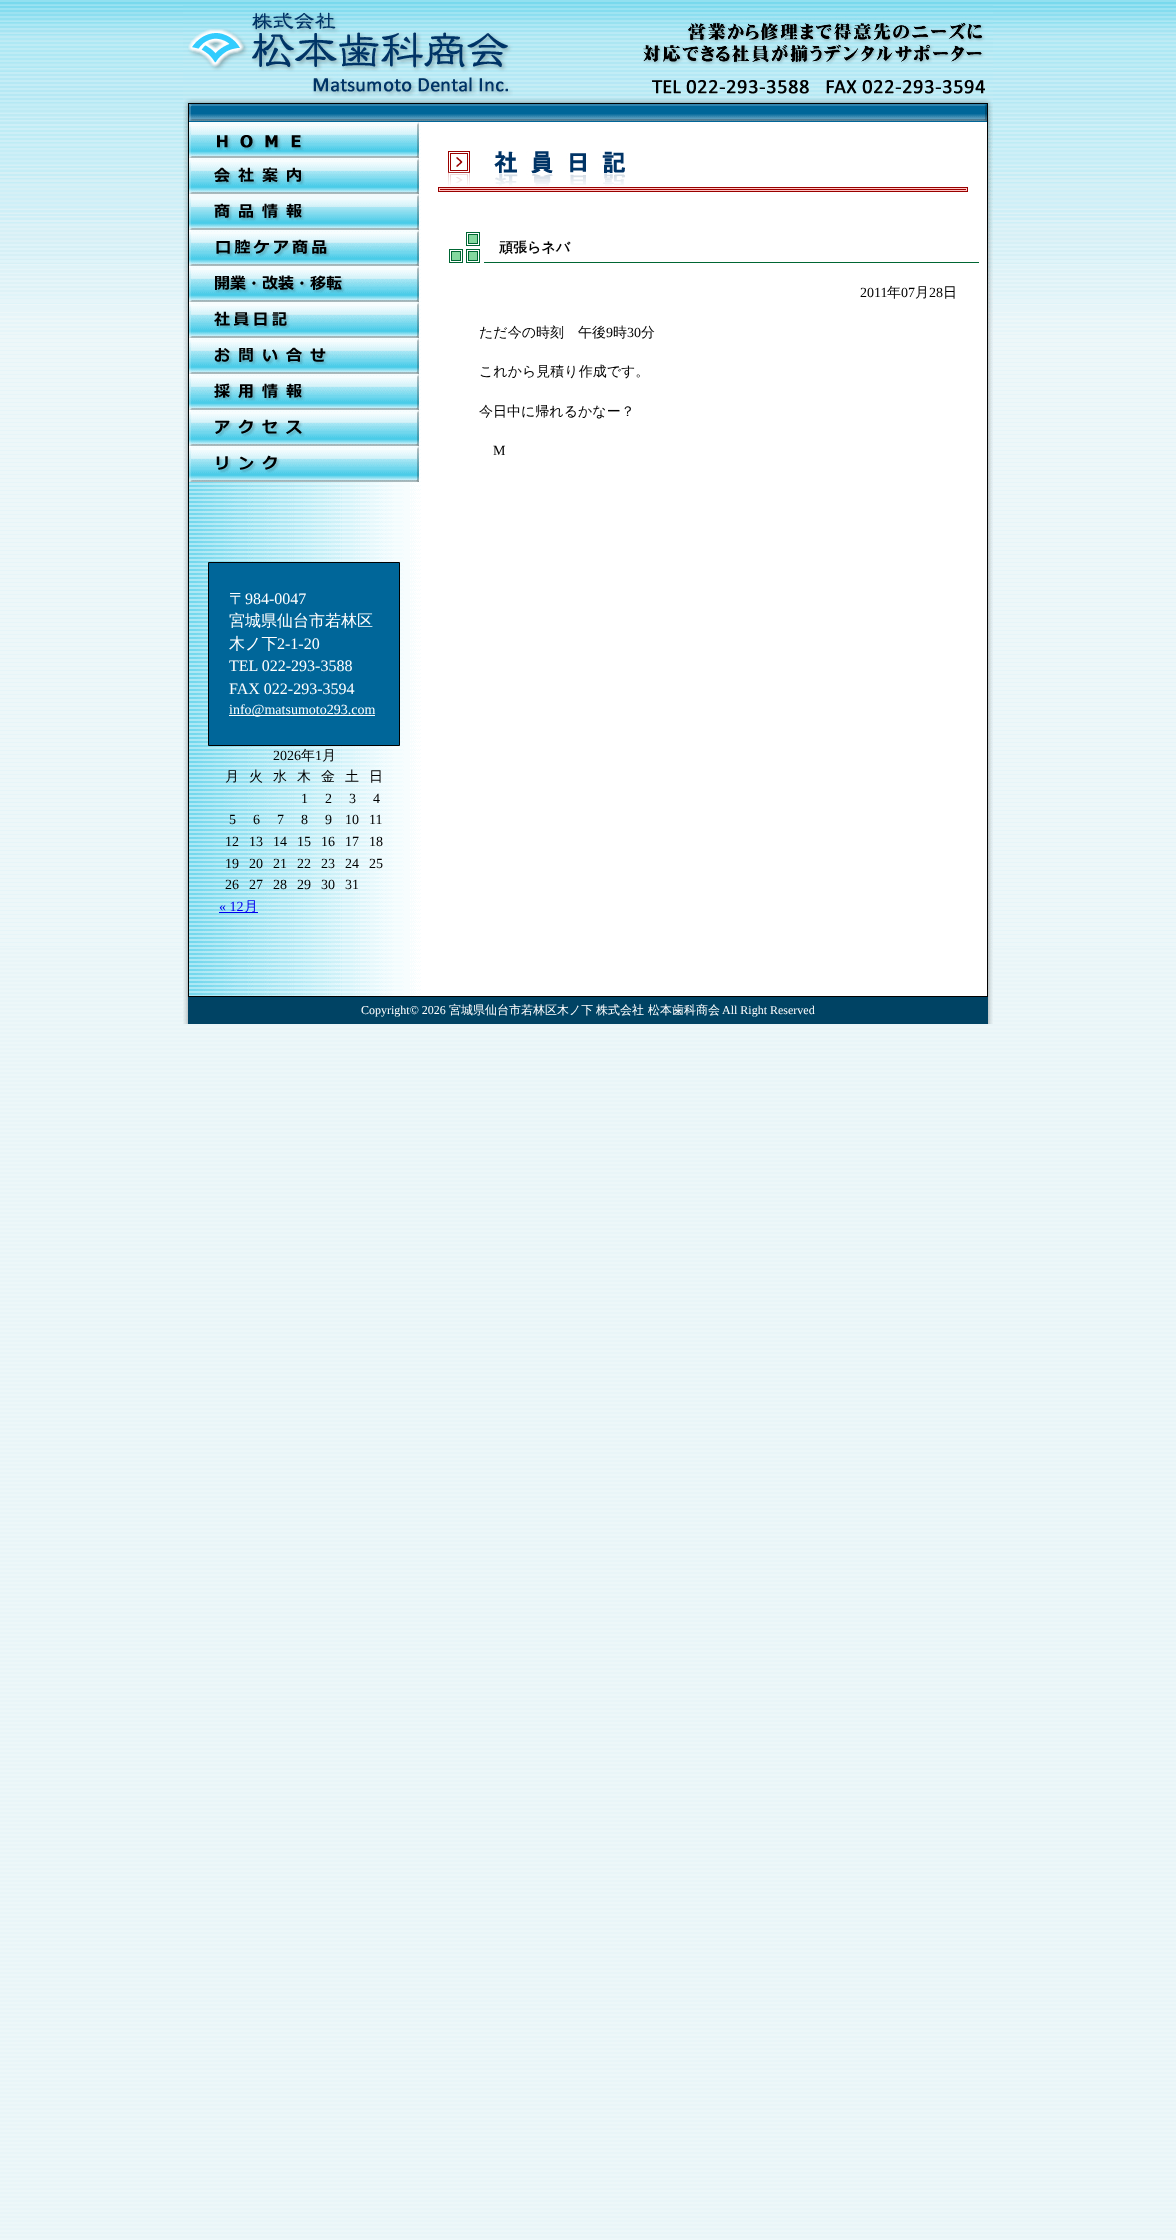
(async () => {
  const canvas = document.querySelector("canvas");
  canvas.width = 1176;
  canvas.height = 2240;
  const ctx = canvas.getContext("2d");
  ctx.miterLimit = 4;
  ctx.fontKerning = "normal";
  async function loadImage(src) {
    const img = new Image();
    img.src = src;
    await img.decode();
    return img;
  }

  ctx.fillStyle = "#ffffff";
  ctx.fillRect(0, 0, 1176, 2240);
  ctx.drawImage(await loadImage("img/1.png"), 0, 947, 1176, 1293);
  ctx.drawImage(await loadImage("img/2.png"), 0, 0, 1176, 947);
  ctx.drawImage(await loadImage("img/3.png"), 183, 5, 810, 98);
  ctx.drawImage(await loadImage("img/4.png"), 183, 949, 810, 75);
  ctx.drawImage(await loadImage("img/5.png"), 183, 103, 5, 847);
  ctx.drawImage(await loadImage("img/6.png"), 988, 103, 5, 846);
  ctx.fillRect(421, 122, 566, 827);
  ctx.drawImage(await loadImage("img/7.png"), 189, 122, 232, 874);
  ctx.strokeStyle = "#000000";
  ctx.strokeRect(188.5, 103.5, 799, 893);
  ctx.drawImage(await loadImage("img/8.png"), 189, 104, 798, 18);
  ctx.drawImage(await loadImage("img/9.png"), 438, 151, 530, 41);
  ctx.drawImage(await loadImage("img/10.png"), 449, 232, 530, 31);
  ctx.drawImage(await loadImage("img/11.png"), 189, 122, 230, 36);
  ctx.drawImage(await loadImage("img/12.png"), 189, 158, 230, 36);
  ctx.drawImage(await loadImage("img/13.png"), 189, 194, 230, 36);
  ctx.drawImage(await loadImage("img/14.png"), 189, 230, 230, 36);
  ctx.drawImage(await loadImage("img/15.png"), 189, 266, 230, 36);
  ctx.drawImage(await loadImage("img/16.png"), 189, 302, 230, 36);
  ctx.drawImage(await loadImage("img/17.png"), 189, 338, 230, 36);
  ctx.drawImage(await loadImage("img/18.png"), 189, 374, 230, 36);
  ctx.drawImage(await loadImage("img/19.png"), 189, 410, 230, 36);
  ctx.drawImage(await loadImage("img/20.png"), 189, 446, 230, 36);
  ctx.fillStyle = "#006699";
  ctx.beginPath();
  ctx.rect(208.5, 562.5, 191, 183);
  ctx.fill();
  ctx.stroke();
  for (const [x, y, w, h, color] of [
    [229, 715, 146, 1, "#ffffff"],
    [219, 912, 39, 1, "#0000ee"],
    [188, 997, 800, 27, "#004364"],
  ]) {
    ctx.fillStyle = color;
    ctx.fillRect(x, y, w, h);
  }
  ctx.font = "bold 14px WenQuanYi Zen Hei";
  ctx.fillStyle = "#000000";
  ctx.fillText("頑張らネバ", 499, 252);
  ctx.font = "14px Liberation Serif";
  ctx.fillText("2011", 860, 297);
  ctx.font = "500 14px WenQuanYi Zen Hei";
  ctx.fillText("年", 887, 297);
  ctx.font = "14px Liberation Serif";
  ctx.fillText("07", 901, 297);
  ctx.font = "500 14px WenQuanYi Zen Hei";
  ctx.fillText("月", 915, 297);
  ctx.font = "14px Liberation Serif";
  ctx.fillText("28", 929, 297);
  ctx.font = "500 14px WenQuanYi Zen Hei";
  ctx.fillText("日", 943, 297);
  ctx.fillText("ただ今の時刻　午後", 479, 337);
  ctx.font = "14px Liberation Serif";
  ctx.fillText("9", 606, 337);
  ctx.font = "500 14px WenQuanYi Zen Hei";
  ctx.fillText("時", 613, 337);
  ctx.font = "14px Liberation Serif";
  ctx.fillText("30", 627, 337);
  ctx.font = "500 14px WenQuanYi Zen Hei";
  for (const [text, x, y] of [
    ["分", 641, 337],
    ["これから見積り作成です。", 479, 376],
    ["今日中に帰れるかなー？", 479, 416],
  ]) {
    ctx.fillText(text, x, y);
  }
  ctx.font = "14px Liberation Serif";
  ctx.fillText("M", 493, 455);
  ctx.font = "500 16px WenQuanYi Zen Hei";
  ctx.fillStyle = "#ffffff";
  ctx.fillText("〒", 229, 604);
  ctx.font = "16px Liberation Serif";
  ctx.fillText("984-0047", 245, 604);
  ctx.font = "500 16px WenQuanYi Zen Hei";
  ctx.fillText("宮城県仙台市若林区", 229, 626);
  ctx.fillText("木ノ下", 229, 649);
  ctx.font = "16px Liberation Serif";
  for (const [text, x, y] of [
    ["2-1-20", 277, 649],
    ["TEL 022-293-3588", 229, 671],
    ["FAX 022-293-3594", 229, 694],
  ]) {
    ctx.fillText(text, x, y);
  }
  ctx.font = "14px Liberation Serif";
  ctx.fillText("info@matsumoto293.com", 229, 714);
  ctx.fillStyle = "#000000";
  ctx.fillText("2026", 273, 760);
  ctx.font = "500 14px WenQuanYi Zen Hei";
  ctx.fillText("年", 301, 760);
  ctx.font = "14px Liberation Serif";
  ctx.fillText("1", 315, 760);
  ctx.font = "500 14px WenQuanYi Zen Hei";
  for (const [text, x, y] of [
    ["月", 322, 760],
    ["月", 225, 781],
    ["火", 249, 781],
    ["水", 273, 781],
    ["木", 297, 781],
    ["金", 321, 781],
    ["土", 345, 781],
    ["日", 369, 781],
  ]) {
    ctx.fillText(text, x, y);
  }
  ctx.font = "14px Liberation Serif";
  for (const [text, x, y] of [
    ["1", 301, 803],
    ["2", 325, 803],
    ["3", 349, 803],
    ["4", 373, 803],
    ["5", 229, 824],
    ["6", 253, 824],
    ["7", 277, 824],
    ["8", 301, 824],
    ["9", 325, 824],
    ["10", 345, 824],
    ["11", 369, 824],
    ["12", 225, 846],
    ["13", 249, 846],
    ["14", 273, 846],
    ["15", 297, 846],
    ["16", 321, 846],
    ["17", 345, 846],
    ["18", 369, 846],
    ["19", 225, 868],
    ["20", 249, 868],
    ["21", 273, 868],
    ["22", 297, 868],
    ["23", 321, 868],
    ["24", 345, 868],
    ["25", 369, 868],
    ["26", 225, 889],
    ["27", 249, 889],
    ["28", 273, 889],
    ["29", 297, 889],
    ["30", 321, 889],
    ["31", 345, 889],
  ]) {
    ctx.fillText(text, x, y);
  }
  ctx.fillStyle = "#0000ee";
  ctx.fillText("« 12", 219, 911);
  ctx.font = "500 14px WenQuanYi Zen Hei";
  ctx.fillText("月", 244, 911);
  ctx.font = "12px Liberation Serif";
  ctx.fillStyle = "#ffffff";
  ctx.fillText("Copyright© 2026", 361, 1014);
  ctx.font = "500 12px WenQuanYi Zen Hei";
  for (const [text, x, y] of [
    ["宮城県仙台市若林区木ノ下", 449, 1014],
    ["株式会社", 596, 1014],
    ["松本歯科商会", 648, 1014],
  ]) {
    ctx.fillText(text, x, y);
  }
  ctx.font = "12px Liberation Serif";
  ctx.fillText("All Right Reserved", 722, 1014);
})();
